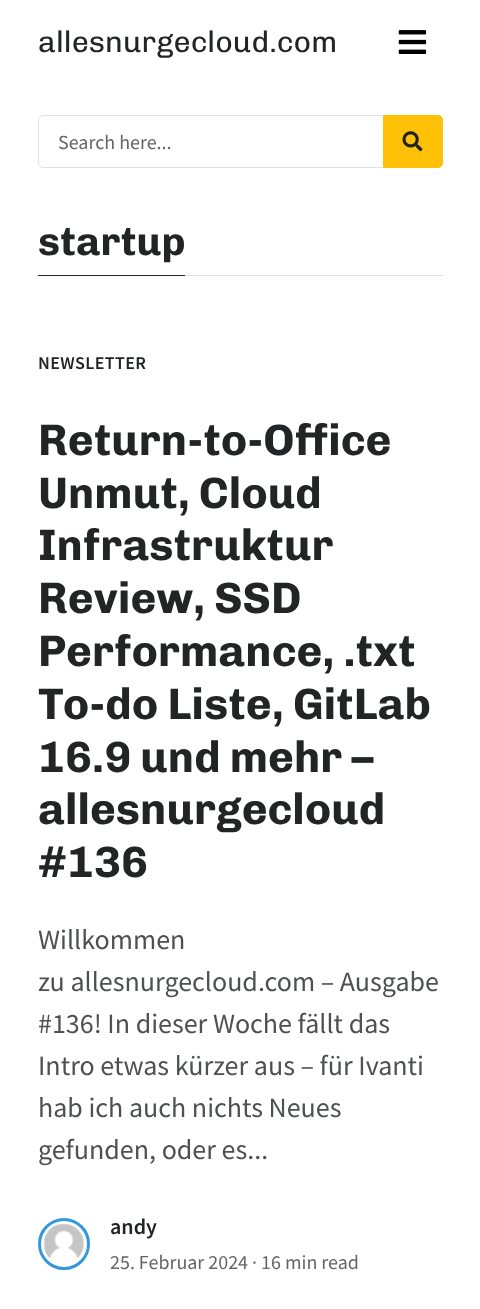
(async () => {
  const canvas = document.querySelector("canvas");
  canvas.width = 480;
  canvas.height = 1309;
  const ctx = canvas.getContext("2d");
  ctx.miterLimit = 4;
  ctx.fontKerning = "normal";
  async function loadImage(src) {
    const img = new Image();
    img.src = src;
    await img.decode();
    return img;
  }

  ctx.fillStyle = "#ffffff";
  ctx.fillRect(0, 0, 480, 1309);
  ctx.drawImage(await loadImage("img/1.png"), 398, 30, 29, 24);
  ctx.beginPath();
  ctx.roundRect(38.5, 115.5, 345, 52, [4.5, 0, 0, 4.5]);
  ctx.strokeStyle = "#dee2e6";
  ctx.stroke();
  ctx.fillStyle = "#ffc107";
  ctx.beginPath();
  ctx.roundRect(383.5, 115.5, 59, 52, [0, 4.5, 4.5, 0]);
  ctx.fill();
  ctx.strokeStyle = "#ffc107";
  ctx.stroke();
  ctx.drawImage(await loadImage("img/2.png"), 402, 131, 21, 21);
  ctx.fillStyle = "#dee2e6";
  ctx.fillRect(185, 275, 258, 1);
  ctx.fillStyle = "#222425";
  ctx.fillRect(38, 275, 147, 1);
  ctx.beginPath();
  ctx.arc(64, 1244, 24.5, 0, Math.PI * 2);
  ctx.strokeStyle = "#3498db";
  ctx.lineWidth = 3;
  ctx.stroke();
  ctx.drawImage(await loadImage("img/3.png"), 43, 1224, 41, 39);
  ctx.font = "30px Chivo";
  ctx.fillText("allesnurgecloud.com", 38, 52);
  ctx.font = "20px Source Sans Pro";
  ctx.fillStyle = "#646666";
  ctx.fillText("Search here...", 58, 149);
  ctx.font = "bold 40px Chivo";
  ctx.fillStyle = "#222425";
  ctx.fillText("startup", 38, 255);
  ctx.letterSpacing = "0.4px";
  ctx.font = "600 18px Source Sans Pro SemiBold";
  ctx.fillText("NEWSLETTER", 38, 369);
  ctx.letterSpacing = "0px";
  ctx.font = "bold 44px Chivo";
  for (const [text, x, y] of [
    ["Return-to-Office", 38, 455],
    ["Unmut, Cloud", 38, 508],
    ["Infrastruktur", 38, 560],
    ["Review, SSD", 38, 613],
    ["Performance, .txt", 38, 666],
    ["To-do Liste, GitLab", 38, 719],
    ["16.9 und mehr –", 38, 772],
    ["allesnurgecloud", 38, 824],
    ["#136", 38, 877],
  ]) {
    ctx.fillText(text, x, y);
  }
  ctx.font = "28px Source Sans Pro";
  ctx.fillStyle = "#4e5051";
  for (const [text, x, y] of [
    ["Willkommen", 38, 949],
    ["zu allesnurgecloud.com – Ausgabe", 38, 991],
    ["#136! In dieser Woche fällt das", 38, 1033],
    ["Intro etwas kürzer aus – für Ivanti", 38, 1075],
    ["hab ich auch nichts Neues", 38, 1117],
    ["gefunden, oder es...", 38, 1159],
  ]) {
    ctx.fillText(text, x, y);
  }
  ctx.font = "600 22px Source Sans Pro SemiBold";
  ctx.fillStyle = "#222425";
  ctx.fillText("andy", 110, 1234);
  ctx.font = "20px Source Sans Pro";
  ctx.fillStyle = "#646666";
  ctx.fillText("25. Februar 2024 · 16 min read", 110, 1269);
})();
